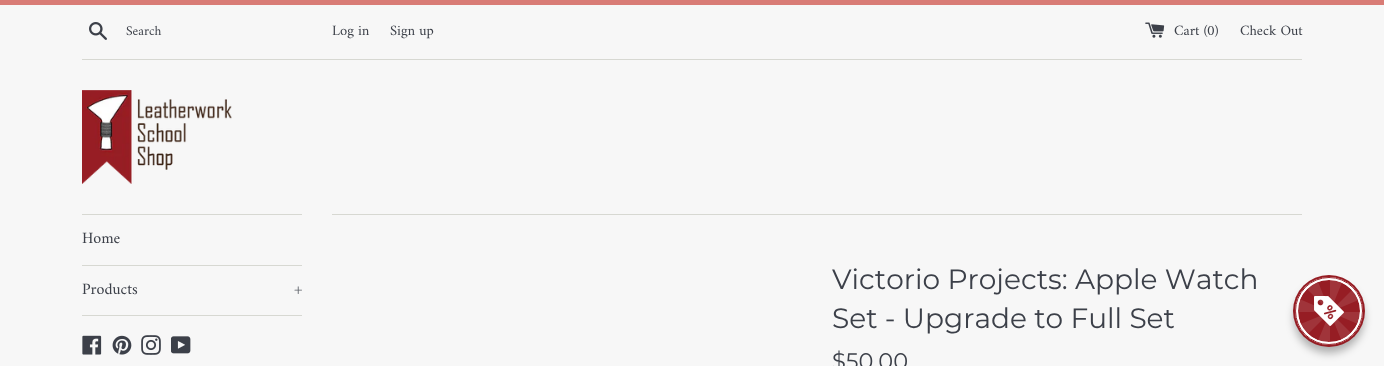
(async () => {
  const canvas = document.querySelector("canvas");
  canvas.width = 1384;
  canvas.height = 366;
  const ctx = canvas.getContext("2d");
  ctx.miterLimit = 4;
  ctx.fontKerning = "none";
  async function loadImage(src) {
    const img = new Image();
    img.src = src;
    await img.decode();
    return img;
  }
  let path;

  ctx.fillStyle = "#f7f7f7";
  ctx.fillRect(0, 0, 1384, 366);
  ctx.fillStyle = "#d97c76";
  ctx.fillRect(0, 0, 1384, 5);
  ctx.drawImage(await loadImage("img/1.png"), 89, 22, 18, 18);
  ctx.drawImage(await loadImage("img/2.png"), 1145, 22, 20, 16);
  ctx.fillStyle = "#d7d8d2";
  ctx.fillRect(82, 59, 1220, 1);
  ctx.drawImage(await loadImage("img/3.png"), 82, 90, 150, 94);
  for (const [x, y, w, h, color] of [
    [82, 214, 220, 1, "#d7d8d2"],
    [82, 265, 220, 1, "#d7d8d2"],
    [82, 315, 220, 1, "#d7d8d2"],
  ]) {
    ctx.fillStyle = color;
    ctx.fillRect(x, y, w, h);
  }
  ctx.drawImage(await loadImage("img/4.png"), 82, 335, 20, 20);
  ctx.drawImage(await loadImage("img/5.png"), 112, 335, 20, 20);
  ctx.drawImage(await loadImage("img/6.png"), 141, 335, 20, 20);
  ctx.drawImage(await loadImage("img/7.png"), 171, 336, 20, 18);
  ctx.fillRect(332, 214, 970, 1);
  ctx.fillStyle = "rgba(0, 0, 0, 0.3)";
  ctx.filter = "blur(4px)";
  ctx.beginPath();
  ctx.roundRect(1294, 283, 70, 70, 35);
  ctx.fill();
  ctx.filter = "none";
  ctx.fillStyle = "#961d24";
  ctx.filter = "blur(0.5px)";
  ctx.beginPath();
  ctx.roundRect(1293, 275, 72, 72, 36);
  ctx.fill();
  ctx.filter = "none";
  ctx.beginPath();
  ctx.arc(1329, 311, 35, 0, Math.PI * 2);
  ctx.fill();
  ctx.beginPath();
  ctx.arc(1329, 311, 32.5, 0, Math.PI * 2);
  ctx.strokeStyle = "#ffffff";
  ctx.lineWidth = 3;
  ctx.stroke();
  ctx.beginPath();
  ctx.arc(1329, 311, 32.5, 0, Math.PI * 2);
  ctx.stroke();
  ctx.beginPath();
  ctx.arc(1329, 311, 33.5, 0, Math.PI * 2);
  ctx.strokeStyle = "#961d24";
  ctx.lineWidth = 1;
  ctx.stroke();
  ctx.beginPath();
  ctx.arc(1329, 311, 34.5, 0, Math.PI * 2);
  ctx.stroke();
  ctx.fillStyle = "rgba(255, 255, 255, 0.1)";
  path = new Path2D("M1317 279C1312 281 1308 284 1305 287L1330 312L1297 298C1296 303 1295 307 1295 312H1330L1298 325C1300 329 1303 333 1306 336L1330 312L1317 343C1321 344 1326 345 1330 345V312L1342 342C1346 341 1350 338 1353 335L1330 312L1360 325C1362 321 1363 317 1363 312H1330L1361 299C1359 295 1357 291 1354 288L1330 312L1343 280C1339 278 1335 277 1330 277V312Z");
  ctx.fill(path);
  ctx.drawImage(await loadImage("img/8.png"), 1314, 296, 30, 30);
  ctx.font = "13.5px Amiri";
  ctx.fillStyle = "#3c4049";
  ctx.fillText("Search", 126, 35);
  ctx.font = "14.5px Amiri";
  for (const [text, x, y] of [
    ["Log in", 332, 35],
    ["Sign up", 390, 35],
    ["Cart (", 1174, 35],
    ["0)", 1207, 35],
    ["Check Out", 1240, 35],
  ]) {
    ctx.fillText(text, x, y);
  }
  ctx.font = "16px Amiri";
  ctx.fillText("Home", 82, 243);
  ctx.fillText("Products", 82, 294);
  ctx.fillStyle = "#61656c";
  ctx.fillText("+", 294, 294);
  ctx.font = "28px Montserrat";
  ctx.fillStyle = "#3c4049";
  ctx.fillText("Victorio Projects: Apple Watch", 832, 289);
  ctx.fillText("Set - Upgrade to Full Set", 832, 328);
  ctx.font = "22.5px Montserrat";
  ctx.fillText("$50.00", 832, 369);
})();
